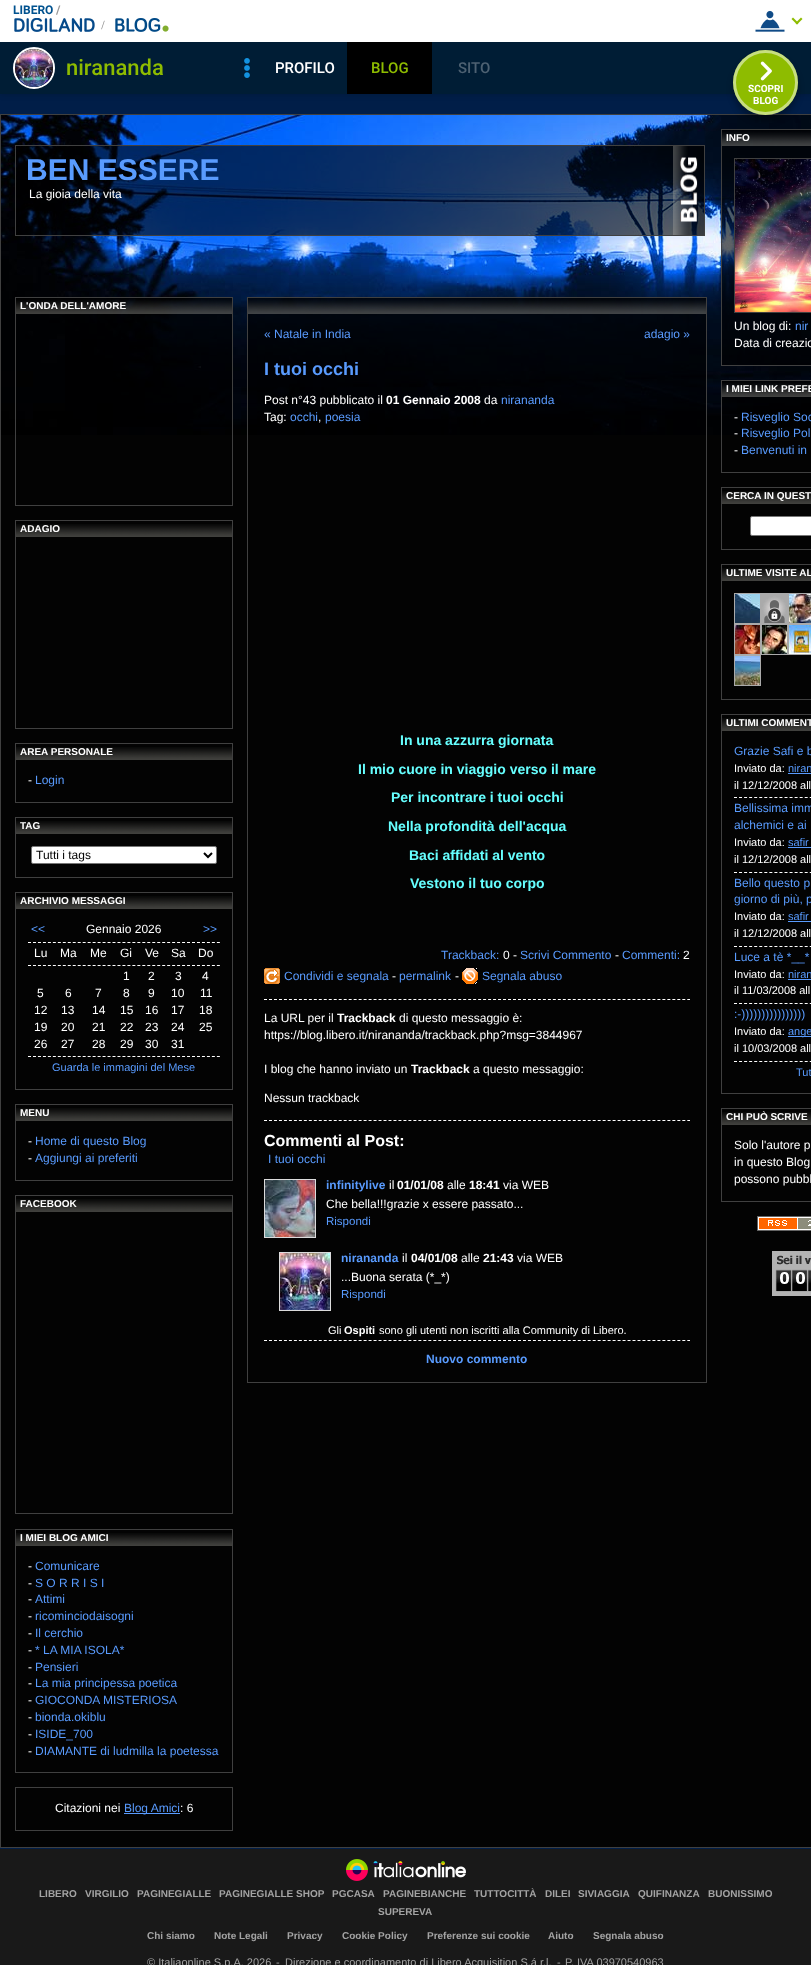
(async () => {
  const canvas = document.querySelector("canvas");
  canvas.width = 811;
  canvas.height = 1965;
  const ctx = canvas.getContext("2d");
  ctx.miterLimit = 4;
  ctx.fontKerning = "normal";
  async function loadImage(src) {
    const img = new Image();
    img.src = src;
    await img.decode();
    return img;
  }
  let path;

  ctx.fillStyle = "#011e48";
  ctx.fillRect(0, 0, 811, 1965);
  ctx.fillStyle = "rgba(0, 0, 0, 0.2)";
  ctx.filter = "blur(3px)";
  ctx.beginPath();
  ctx.rect(0, 0, 811, 94);
  ctx.fill();
  ctx.filter = "none";
  ctx.fillStyle = "#ffffff";
  ctx.fillRect(0, 0, 811, 42);
  ctx.drawImage(await loadImage("img/1.png"), 755, 10, 30, 22);
  ctx.fillStyle = "#8ebc00";
  path = new Path2D("M801 17.5L802.5 19L797 24.5L795.5 23Z");
  ctx.fill(path);
  path = new Path2D("M793 17.5L798.5 23L797 24.5L791.5 19Z");
  ctx.fill(path);
  ctx.drawImage(await loadImage("img/2.png"), 14, 18, 81, 14);
  ctx.drawImage(await loadImage("img/3.png"), 101, 20, 4, 10);
  ctx.drawImage(await loadImage("img/4.png"), 115, 18, 54, 14);
  ctx.fillStyle = "#001d35";
  ctx.fillRect(0, 42, 811, 52);
  ctx.beginPath();
  ctx.arc(34, 68, 20, 0, Math.PI * 2);
  ctx.strokeStyle = "#ffffff";
  ctx.lineWidth = 2;
  ctx.stroke();
  ctx.drawImage(await loadImage("img/5.png"), 15, 49, 38, 38);
  ctx.drawImage(await loadImage("img/6.png"), 244, 58, 6, 20);
  ctx.fillStyle = "#000000";
  ctx.fillRect(347, 42, 85, 52);
  ctx.drawImage(await loadImage("img/8.png"), 1, 115, 810, 320);
  ctx.fillStyle = "#030303";
  ctx.fillRect(1, 435, 810, 1412);
  ctx.strokeStyle = "#404040";
  ctx.lineWidth = 1;
  ctx.strokeRect(0.5, 114.5, 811, 1733);
  ctx.strokeRect(721.5, 129.5, 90, 236);
  ctx.drawImage(await loadImage("img/18.png"), 722, 130, 89, 16);
  ctx.fillStyle = "rgba(0, 0, 0, 0.3)";
  ctx.filter = "blur(3px)";
  ctx.beginPath();
  ctx.roundRect(733, 56, 65, 65, 32.5);
  ctx.fill();
  ctx.filter = "none";
  ctx.fillStyle = "#8ebc00";
  ctx.beginPath();
  ctx.arc(765.5, 82.5, 32.5, 0, Math.PI * 2);
  ctx.fill();
  ctx.beginPath();
  ctx.arc(765.5, 82.5, 31, 0, Math.PI * 2);
  ctx.strokeStyle = "rgba(255, 255, 255, 0.5)";
  ctx.lineWidth = 3;
  ctx.stroke();
  ctx.drawImage(await loadImage("img/7.png"), 760, 61, 12, 20);
  ctx.strokeStyle = "#404040";
  ctx.lineWidth = 1;
  ctx.strokeRect(15.5, 145.5, 689, 90);
  ctx.fillStyle = "rgba(0, 0, 0, 0.6)";
  ctx.fillRect(16, 146, 657, 89);
  ctx.drawImage(await loadImage("img/9.png"), 673, 146, 31, 89);
  ctx.drawImage(await loadImage("img/10.png"), 680, 157, 18, 65);
  ctx.strokeRect(15.5, 297.5, 217, 208);
  ctx.drawImage(await loadImage("img/11.png"), 16, 298, 216, 16);
  ctx.fillRect(65, 314, 167, 113);
  ctx.strokeRect(15.5, 520.5, 217, 208);
  ctx.drawImage(await loadImage("img/12.png"), 16, 524, 216, 13);
  ctx.strokeRect(15.5, 743.5, 217, 59);
  ctx.drawImage(await loadImage("img/12.png"), 16, 747, 216, 13);
  ctx.strokeRect(15.5, 817.5, 217, 60);
  ctx.drawImage(await loadImage("img/12.png"), 16, 821, 216, 13);
  ctx.fillStyle = "#ffffff";
  ctx.beginPath();
  ctx.roundRect(31.5, 846.5, 185, 17, 1.5);
  ctx.fill();
  ctx.strokeStyle = "#767676";
  ctx.stroke();
  path = new Path2D("M204 853L208 857L212 853");
  ctx.strokeStyle = "#000000";
  ctx.lineWidth = 2;
  ctx.stroke(path);
  ctx.strokeStyle = "#404040";
  ctx.lineWidth = 1;
  ctx.strokeRect(15.5, 892.5, 217, 197);
  ctx.drawImage(await loadImage("img/12.png"), 16, 896, 216, 13);
  path = new Path2D("M28 942.5H220");
  ctx.strokeStyle = "#ffffff";
  ctx.setLineDash([3, 1.97]);
  ctx.stroke(path);
  path = new Path2D("M28 965.5H220");
  ctx.stroke(path);
  path = new Path2D("M28 1056.5H220");
  ctx.stroke(path);
  ctx.strokeStyle = "#404040";
  ctx.setLineDash([]);
  ctx.strokeRect(15.5, 1104.5, 217, 76);
  ctx.drawImage(await loadImage("img/12.png"), 16, 1108, 216, 13);
  ctx.strokeRect(15.5, 1195.5, 217, 318);
  ctx.drawImage(await loadImage("img/12.png"), 16, 1199, 216, 13);
  ctx.strokeRect(15.5, 1529.5, 217, 243);
  ctx.drawImage(await loadImage("img/12.png"), 16, 1533, 216, 13);
  ctx.strokeRect(15.5, 1787.5, 217, 43);
  ctx.fillStyle = "#599bfe";
  ctx.fillRect(124, 1813, 56, 1);
  ctx.strokeRect(247.5, 297.5, 459, 1085);
  ctx.drawImage(await loadImage("img/13.png"), 248, 298, 458, 16);
  ctx.fillStyle = "rgba(0, 0, 0, 0.6)";
  ctx.fillRect(248, 314, 458, 121);
  ctx.drawImage(await loadImage("img/14.png"), 264, 968, 16, 16);
  ctx.drawImage(await loadImage("img/15.png"), 462, 968, 16, 16);
  path = new Path2D("M264 999.5H690");
  ctx.strokeStyle = "#ffffff";
  ctx.setLineDash([3, 1.98]);
  ctx.stroke(path);
  path = new Path2D("M264 1120.5H690");
  ctx.stroke(path);
  ctx.strokeStyle = "#dbdbdc";
  ctx.setLineDash([]);
  ctx.strokeRect(264.5, 1179.5, 51, 58);
  ctx.drawImage(await loadImage("img/16.png"), 265, 1180, 50, 57);
  ctx.strokeRect(279.5, 1252.5, 51, 58);
  ctx.drawImage(await loadImage("img/17.png"), 280, 1253, 50, 57);
  path = new Path2D("M264 1340.5H690");
  ctx.strokeStyle = "#ffffff";
  ctx.setLineDash([3, 1.98]);
  ctx.stroke(path);
  ctx.fillRect(722, 146, 89, 219);
  ctx.strokeStyle = "#404040";
  ctx.setLineDash([]);
  ctx.strokeRect(734.5, 158.5, 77, 154);
  ctx.drawImage(await loadImage("img/19.png"), 735, 159, 76, 153);
  ctx.strokeRect(721.5, 380.5, 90, 92);
  ctx.drawImage(await loadImage("img/20.png"), 722, 381, 89, 16);
  ctx.fillRect(722, 397, 89, 17);
  ctx.strokeRect(721.5, 487.5, 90, 62);
  ctx.drawImage(await loadImage("img/21.png"), 722, 491, 89, 13);
  ctx.fillStyle = "#ffffff";
  ctx.beginPath();
  ctx.roundRect(750.5, 516.5, 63, 19, 1.5);
  ctx.fill();
  ctx.strokeStyle = "#767676";
  ctx.stroke();
  ctx.strokeStyle = "#404040";
  ctx.strokeRect(721.5, 564.5, 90, 135);
  ctx.drawImage(await loadImage("img/21.png"), 722, 568, 89, 13);
  ctx.strokeStyle = "#aaaaaa";
  ctx.strokeRect(734.5, 593.5, 26, 30);
  ctx.strokeRect(761.5, 593.5, 26, 30);
  ctx.strokeRect(788.5, 593.5, 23, 30);
  ctx.drawImage(await loadImage("img/22.png"), 735, 594, 25, 29);
  ctx.drawImage(await loadImage("img/23.png"), 762, 594, 25, 29);
  ctx.drawImage(await loadImage("img/24.png"), 789, 594, 22, 29);
  ctx.strokeRect(734.5, 624.5, 26, 30);
  ctx.strokeRect(761.5, 624.5, 26, 30);
  ctx.strokeRect(788.5, 624.5, 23, 30);
  ctx.drawImage(await loadImage("img/25.png"), 735, 625, 25, 29);
  ctx.drawImage(await loadImage("img/26.png"), 762, 625, 25, 29);
  ctx.drawImage(await loadImage("img/27.png"), 789, 625, 22, 29);
  ctx.strokeRect(734.5, 655.5, 26, 30);
  ctx.drawImage(await loadImage("img/28.png"), 735, 656, 25, 29);
  ctx.strokeStyle = "#404040";
  ctx.strokeRect(721.5, 714.5, 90, 379);
  ctx.drawImage(await loadImage("img/21.png"), 722, 718, 89, 13);
  ctx.fillStyle = "#599bfe";
  ctx.fillRect(788, 773, 23, 1);
  path = new Path2D("M734 797.5H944");
  ctx.strokeStyle = "#ffffff";
  ctx.setLineDash([3, 2.05]);
  ctx.stroke(path);
  ctx.fillRect(788, 847, 23, 1);
  path = new Path2D("M734 872.5H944");
  ctx.stroke(path);
  ctx.fillRect(788, 921, 23, 1);
  path = new Path2D("M734 946.5H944");
  ctx.stroke(path);
  ctx.fillRect(788, 979, 23, 1);
  path = new Path2D("M734 1003.5H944");
  ctx.stroke(path);
  ctx.fillRect(788, 1036, 23, 1);
  path = new Path2D("M734 1061.5H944");
  ctx.stroke(path);
  ctx.strokeStyle = "#404040";
  ctx.setLineDash([]);
  ctx.strokeRect(721.5, 1108.5, 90, 93);
  ctx.drawImage(await loadImage("img/21.png"), 722, 1112, 89, 13);
  ctx.drawImage(await loadImage("img/29.png"), 757, 1216, 54, 15);
  ctx.drawImage(await loadImage("img/30.png"), 772, 1251, 39, 45);
  ctx.fillStyle = "#191919";
  ctx.fillRect(0, 1849, 811, 116);
  ctx.drawImage(await loadImage("img/31.png"), 346, 1859, 120, 22);
  ctx.font = "bold 12px Roboto";
  ctx.fillStyle = "#00528f";
  ctx.fillText("LIBERO", 13, 14);
  ctx.fillStyle = "#999999";
  ctx.fillText("/", 56, 14);
  ctx.font = "500 22px Roboto";
  ctx.fillStyle = "#8ebc00";
  ctx.fillText("nirananda", 66, 75);
  ctx.font = "500 15px Roboto";
  ctx.fillStyle = "#ffffff";
  ctx.fillText("PROFILO", 275, 73);
  ctx.fillStyle = "#8ebc00";
  ctx.fillText("BLOG", 371, 73);
  ctx.fillStyle = "#4d6172";
  ctx.fillText("SITO", 458, 73);
  ctx.font = "bold 10px Roboto";
  ctx.fillStyle = "#ffffff";
  ctx.fillText("SCOPRI", 748, 92);
  ctx.fillText("BLOG", 753, 104);
  ctx.font = "bold 30px Liberation Sans";
  ctx.fillStyle = "#599bfe";
  ctx.fillText("BEN ESSERE", 26, 180);
  ctx.font = "12px Liberation Sans";
  ctx.fillStyle = "#ffffff";
  ctx.fillText("La gioia della vita", 29, 198);
  ctx.font = "bold 10px Liberation Sans";
  for (const [text, x, y] of [
    ["L'ONDA DELL'AMORE", 20, 309],
    ["ADAGIO", 20, 532],
    ["AREA PERSONALE", 20, 755],
  ]) {
    ctx.fillText(text, x, y);
  }
  ctx.font = "12px Liberation Sans";
  ctx.fillText("-", 28, 784);
  ctx.fillStyle = "#599bfe";
  ctx.fillText("Login", 35, 784);
  ctx.font = "bold 10px Liberation Sans";
  ctx.fillStyle = "#ffffff";
  ctx.fillText("TAG", 20, 829);
  ctx.font = "12px Liberation Sans";
  ctx.fillStyle = "#000000";
  ctx.fillText("Tutti i tags", 36, 859);
  ctx.font = "bold 10px Liberation Sans";
  ctx.fillStyle = "#ffffff";
  ctx.fillText("ARCHIVIO MESSAGGI", 20, 904);
  ctx.font = "12px Liberation Sans";
  ctx.fillStyle = "#599bfe";
  ctx.fillText("<<", 31, 933);
  ctx.fillStyle = "#ffffff";
  ctx.fillText("Gennaio 2026", 86, 933);
  ctx.fillStyle = "#599bfe";
  ctx.fillText(">>", 203, 933);
  ctx.fillStyle = "#ffffff";
  for (const [text, x, y] of [
    ["Lu", 34, 957],
    ["Ma", 60, 957],
    ["Me", 90, 957],
    ["Gi", 120, 957],
    ["Ve", 145, 957],
    ["Sa", 171, 957],
    ["Do", 198, 957],
    ["1", 123, 980],
    ["2", 148, 980],
    ["3", 175, 980],
    ["4", 202, 980],
    ["5", 37, 997],
    ["6", 65, 997],
    ["7", 95, 997],
    ["8", 123, 997],
    ["9", 148, 997],
    ["10", 171, 997],
    ["11", 200, 997],
    ["12", 34, 1014],
    ["13", 61, 1014],
    ["14", 92, 1014],
    ["15", 120, 1014],
    ["16", 145, 1014],
    ["17", 171, 1014],
    ["18", 199, 1014],
    ["19", 34, 1031],
    ["20", 61, 1031],
    ["21", 92, 1031],
    ["22", 120, 1031],
    ["23", 145, 1031],
    ["24", 171, 1031],
    ["25", 199, 1031],
    ["26", 34, 1048],
    ["27", 61, 1048],
    ["28", 92, 1048],
    ["29", 120, 1048],
    ["30", 145, 1048],
    ["31", 171, 1048],
  ]) {
    ctx.fillText(text, x, y);
  }
  ctx.font = "11px Liberation Sans";
  ctx.fillStyle = "#599bfe";
  ctx.fillText("Guarda le immagini del Mese", 52, 1071);
  ctx.font = "bold 10px Liberation Sans";
  ctx.fillStyle = "#ffffff";
  ctx.fillText("MENU", 20, 1116);
  ctx.font = "12px Liberation Sans";
  ctx.fillText("-", 28, 1145);
  ctx.fillStyle = "#599bfe";
  ctx.fillText("Home di questo Blog", 35, 1145);
  ctx.fillStyle = "#ffffff";
  ctx.fillText("-", 28, 1162);
  ctx.fillStyle = "#599bfe";
  ctx.fillText("Aggiungi ai preferiti", 35, 1162);
  ctx.font = "bold 10px Liberation Sans";
  ctx.fillStyle = "#ffffff";
  ctx.fillText("FACEBOOK", 20, 1207);
  ctx.fillText("I MIEI BLOG AMICI", 20, 1541);
  ctx.font = "12px Liberation Sans";
  ctx.fillText("-", 28, 1570);
  ctx.fillStyle = "#599bfe";
  ctx.fillText("Comunicare", 35, 1570);
  ctx.fillStyle = "#ffffff";
  ctx.fillText("-", 28, 1587);
  ctx.fillStyle = "#599bfe";
  ctx.fillText("S O R R I S I", 35, 1587);
  ctx.fillStyle = "#ffffff";
  ctx.fillText("-", 28, 1603);
  ctx.fillStyle = "#599bfe";
  ctx.fillText("Attimi", 35, 1603);
  ctx.fillStyle = "#ffffff";
  ctx.fillText("-", 28, 1620);
  ctx.fillStyle = "#599bfe";
  ctx.fillText("ricominciodaisogni", 35, 1620);
  ctx.fillStyle = "#ffffff";
  ctx.fillText("-", 28, 1637);
  ctx.fillStyle = "#599bfe";
  ctx.fillText("Il cerchio", 35, 1637);
  ctx.fillStyle = "#ffffff";
  ctx.fillText("-", 28, 1654);
  ctx.fillStyle = "#599bfe";
  ctx.fillText("* LA MIA ISOLA*", 35, 1654);
  ctx.fillStyle = "#ffffff";
  ctx.fillText("-", 28, 1671);
  ctx.fillStyle = "#599bfe";
  ctx.fillText("Pensieri", 35, 1671);
  ctx.fillStyle = "#ffffff";
  ctx.fillText("-", 28, 1687);
  ctx.fillStyle = "#599bfe";
  ctx.fillText("La mia principessa poetica", 35, 1687);
  ctx.fillStyle = "#ffffff";
  ctx.fillText("-", 28, 1704);
  ctx.fillStyle = "#599bfe";
  ctx.fillText("GIOCONDA MISTERIOSA", 35, 1704);
  ctx.fillStyle = "#ffffff";
  ctx.fillText("-", 28, 1721);
  ctx.fillStyle = "#599bfe";
  ctx.fillText("bionda.okiblu", 35, 1721);
  ctx.fillStyle = "#ffffff";
  ctx.fillText("-", 28, 1738);
  ctx.fillStyle = "#599bfe";
  ctx.fillText("ISIDE_700", 35, 1738);
  ctx.fillStyle = "#ffffff";
  ctx.fillText("-", 28, 1755);
  ctx.fillStyle = "#599bfe";
  ctx.fillText("DIAMANTE di ludmilla la poetessa", 35, 1755);
  ctx.fillStyle = "#ffffff";
  ctx.fillText("Citazioni nei", 55, 1812);
  ctx.fillStyle = "#599bfe";
  ctx.fillText("Blog Amici", 124, 1812);
  ctx.fillStyle = "#ffffff";
  ctx.fillText(": 6", 180, 1812);
  ctx.fillStyle = "#599bfe";
  ctx.fillText("« Natale in India", 264, 338);
  ctx.fillText("adagio »", 644, 338);
  ctx.font = "bold 18px Liberation Sans";
  ctx.fillText("I tuoi occhi", 264, 375);
  ctx.font = "12px Liberation Sans";
  ctx.fillStyle = "#ffffff";
  ctx.fillText("Post n°43 pubblicato il", 264, 404);
  ctx.font = "bold 12px Liberation Sans";
  ctx.fillText("01 Gennaio 2008", 386, 404);
  ctx.font = "12px Liberation Sans";
  ctx.fillText("da", 484, 404);
  ctx.fillStyle = "#599bfe";
  ctx.fillText("nirananda", 501, 404);
  ctx.fillStyle = "#ffffff";
  ctx.fillText("Tag:", 264, 421);
  ctx.fillStyle = "#599bfe";
  ctx.fillText("occhi", 290, 421);
  ctx.fillStyle = "#ffffff";
  ctx.fillText(",", 318, 421);
  ctx.fillStyle = "#599bfe";
  ctx.fillText("poesia", 325, 421);
  ctx.font = "bold 14px Liberation Sans";
  ctx.fillStyle = "#66ffff";
  for (const [text, x, y] of [
    ["In una azzurra giornata", 400, 745],
    ["Il mio cuore in viaggio verso il mare", 358, 774],
    ["Per incontrare i tuoi occhi", 391, 802],
    ["Nella profondità dell'acqua", 388, 831],
    ["Baci affidati al vento", 409, 860],
    ["Vestono il tuo corpo", 410, 888],
  ]) {
    ctx.fillText(text, x, y);
  }
  ctx.font = "12px Liberation Sans";
  ctx.fillStyle = "#599bfe";
  ctx.fillText("Trackback:", 441, 959);
  ctx.fillStyle = "#ffffff";
  ctx.fillText("0 -", 503, 959);
  ctx.fillStyle = "#599bfe";
  ctx.fillText("Scrivi Commento", 520, 959);
  ctx.fillStyle = "#ffffff";
  ctx.fillText("-", 615, 959);
  ctx.fillStyle = "#599bfe";
  ctx.fillText("Commenti:", 622, 959);
  ctx.fillStyle = "#ffffff";
  ctx.fillText("2", 683, 959);
  ctx.fillStyle = "#599bfe";
  ctx.fillText("Condividi e segnala", 284, 980);
  ctx.fillStyle = "#ffffff";
  ctx.fillText("-", 392, 980);
  ctx.fillStyle = "#599bfe";
  ctx.fillText("permalink", 399, 980);
  ctx.fillStyle = "#ffffff";
  ctx.fillText("-", 455, 980);
  ctx.fillStyle = "#599bfe";
  ctx.fillText("Segnala abuso", 482, 980);
  ctx.fillStyle = "#ffffff";
  ctx.fillText("La URL per il", 264, 1022);
  ctx.font = "bold 12px Liberation Sans";
  ctx.fillText("Trackback", 337, 1022);
  ctx.font = "12px Liberation Sans";
  for (const [text, x, y] of [
    ["di questo messaggio è:", 399, 1022],
    ["https://blog.libero.it/nirananda/trackback.php?msg=3844967", 264, 1039],
    ["I blog che hanno inviato un", 264, 1073],
  ]) {
    ctx.fillText(text, x, y);
  }
  ctx.font = "bold 12px Liberation Sans";
  ctx.fillText("Trackback", 411, 1073);
  ctx.font = "12px Liberation Sans";
  ctx.fillText("a questo messaggio:", 473, 1073);
  ctx.fillText("Nessun trackback", 264, 1102);
  ctx.font = "bold 16px Liberation Sans";
  ctx.fillText("Commenti al Post:", 264, 1146);
  ctx.font = "12px Liberation Sans";
  ctx.fillStyle = "#599bfe";
  ctx.fillText("I tuoi occhi", 268, 1163);
  ctx.font = "bold 12px Liberation Sans";
  ctx.fillText("infinitylive", 326, 1189);
  ctx.font = "12px Liberation Sans";
  ctx.fillStyle = "#ffffff";
  ctx.fillText("il", 389, 1189);
  ctx.font = "bold 12px Liberation Sans";
  ctx.fillText("01/01/08", 397, 1189);
  ctx.font = "12px Liberation Sans";
  ctx.fillText("alle", 447, 1189);
  ctx.font = "bold 12px Liberation Sans";
  ctx.fillText("18:41", 469, 1189);
  ctx.font = "12px Liberation Sans";
  ctx.fillText("via WEB", 503, 1189);
  ctx.fillText("Che bella!!!grazie x essere passato...", 326, 1208);
  ctx.font = "11.5px Liberation Sans";
  ctx.fillStyle = "#599bfe";
  ctx.fillText("Rispondi", 326, 1225);
  ctx.font = "bold 12px Liberation Sans";
  ctx.fillText("nirananda", 341, 1262);
  ctx.font = "12px Liberation Sans";
  ctx.fillStyle = "#ffffff";
  ctx.fillText("il", 402, 1262);
  ctx.font = "bold 12px Liberation Sans";
  ctx.fillText("04/01/08", 411, 1262);
  ctx.font = "12px Liberation Sans";
  ctx.fillText("alle", 461, 1262);
  ctx.font = "bold 12px Liberation Sans";
  ctx.fillText("21:43", 483, 1262);
  ctx.font = "12px Liberation Sans";
  ctx.fillText("via WEB", 517, 1262);
  ctx.fillText("...Buona serata (*_*)", 341, 1281);
  ctx.font = "11.5px Liberation Sans";
  ctx.fillStyle = "#599bfe";
  ctx.fillText("Rispondi", 341, 1298);
  ctx.font = "11px Liberation Sans";
  ctx.fillStyle = "#ffffff";
  ctx.fillText("Gli", 328, 1334);
  ctx.font = "bold 11px Liberation Sans";
  ctx.fillText("Ospiti", 344, 1334);
  ctx.font = "11px Liberation Sans";
  ctx.fillText("sono gli utenti non iscritti alla Community di Libero.", 379, 1334);
  ctx.font = "bold 12px Liberation Sans";
  ctx.fillStyle = "#599bfe";
  ctx.fillText("Nuovo commento", 426, 1363);
  ctx.font = "bold 10px Liberation Sans";
  ctx.fillStyle = "#ffffff";
  ctx.fillText("INFO", 726, 141);
  ctx.font = "12px Liberation Sans";
  ctx.fillText("Un blog di:", 734, 330);
  ctx.fillStyle = "#599bfe";
  ctx.fillText("nir", 795, 330);
  ctx.fillStyle = "#ffffff";
  ctx.fillText("Data di creazio", 734, 347);
  ctx.font = "bold 10px Liberation Sans";
  ctx.fillText("I MIEI LINK PREFE", 726, 392);
  ctx.font = "12px Liberation Sans";
  ctx.fillText("-", 734, 421);
  ctx.fillStyle = "#599bfe";
  ctx.fillText("Risveglio Soc", 741, 421);
  ctx.fillStyle = "#ffffff";
  ctx.fillText("-", 734, 437);
  ctx.fillStyle = "#599bfe";
  ctx.fillText("Risveglio Pol", 741, 437);
  ctx.fillStyle = "#ffffff";
  ctx.fillText("-", 734, 454);
  ctx.fillStyle = "#599bfe";
  ctx.fillText("Benvenuti in", 741, 454);
  ctx.font = "bold 10px Liberation Sans";
  ctx.fillStyle = "#ffffff";
  for (const [text, x, y] of [
    ["CERCA IN QUEST", 726, 499],
    ["ULTIME VISITE AL", 726, 576],
    ["ULTIMI COMMENT", 726, 726],
  ]) {
    ctx.fillText(text, x, y);
  }
  ctx.font = "12px Liberation Sans";
  ctx.fillStyle = "#599bfe";
  ctx.fillText("Grazie Safi e b", 734, 755);
  ctx.font = "11px Liberation Sans";
  ctx.fillStyle = "#ffffff";
  ctx.fillText("Inviato da:", 734, 772);
  ctx.fillStyle = "#599bfe";
  ctx.fillText("niran", 788, 772);
  ctx.fillStyle = "#ffffff";
  ctx.fillText("il 12/12/2008 all", 734, 789);
  ctx.font = "12px Liberation Sans";
  ctx.fillStyle = "#599bfe";
  ctx.fillText("Bellissima imm", 734, 812);
  ctx.fillText("alchemici e ai", 734, 829);
  ctx.font = "11px Liberation Sans";
  ctx.fillStyle = "#ffffff";
  ctx.fillText("Inviato da:", 734, 846);
  ctx.fillStyle = "#599bfe";
  ctx.fillText("safir", 788, 846);
  ctx.fillStyle = "#ffffff";
  ctx.fillText("il 12/12/2008 all", 734, 863);
  ctx.font = "12px Liberation Sans";
  ctx.fillStyle = "#599bfe";
  ctx.fillText("Bello questo p", 734, 887);
  ctx.fillText("giorno di più, p", 734, 903);
  ctx.font = "11px Liberation Sans";
  ctx.fillStyle = "#ffffff";
  ctx.fillText("Inviato da:", 734, 920);
  ctx.fillStyle = "#599bfe";
  ctx.fillText("safir", 788, 920);
  ctx.fillStyle = "#ffffff";
  ctx.fillText("il 12/12/2008 all", 734, 937);
  ctx.font = "12px Liberation Sans";
  ctx.fillStyle = "#599bfe";
  ctx.fillText("Luce a tè *__*", 734, 961);
  ctx.font = "11px Liberation Sans";
  ctx.fillStyle = "#ffffff";
  ctx.fillText("Inviato da:", 734, 978);
  ctx.fillStyle = "#599bfe";
  ctx.fillText("niran", 788, 978);
  ctx.fillStyle = "#ffffff";
  ctx.fillText("il 11/03/2008 all", 734, 994);
  ctx.font = "12px Liberation Sans";
  ctx.fillStyle = "#599bfe";
  ctx.fillText(":-))))))))))))))))", 734, 1018);
  ctx.font = "11px Liberation Sans";
  ctx.fillStyle = "#ffffff";
  ctx.fillText("Inviato da:", 734, 1035);
  ctx.fillStyle = "#599bfe";
  ctx.fillText("ange", 788, 1035);
  ctx.fillStyle = "#ffffff";
  ctx.fillText("il 10/03/2008 all", 734, 1052);
  ctx.fillStyle = "#599bfe";
  ctx.fillText("Tut", 796, 1076);
  ctx.font = "bold 10px Liberation Sans";
  ctx.fillStyle = "#ffffff";
  ctx.fillText("CHI PUÒ SCRIVE", 726, 1120);
  ctx.font = "12px Liberation Sans";
  for (const [text, x, y] of [
    ["Solo l'autore p", 734, 1149],
    ["in questo Blog", 734, 1166],
    ["possono pubbl", 734, 1183],
  ]) {
    ctx.fillText(text, x, y);
  }
  ctx.font = "bold 10px Liberation Sans";
  ctx.fillStyle = "#a3a3a3";
  for (const [text, x, y] of [
    ["LIBERO", 39, 1897],
    ["VIRGILIO", 85, 1897],
    ["PAGINEGIALLE", 137, 1897],
    ["PAGINEGIALLE SHOP", 219, 1897],
    ["PGCASA", 332, 1897],
    ["PAGINEBIANCHE", 383, 1897],
    ["TUTTOCITTÀ", 474, 1897],
    ["DILEI", 545, 1897],
    ["SIVIAGGIA", 578, 1897],
    ["QUIFINANZA", 638, 1897],
    ["BUONISSIMO", 708, 1897],
    ["SUPEREVA", 378, 1915],
    ["Chi siamo", 147, 1939],
    ["Note Legali", 214, 1939],
    ["Privacy", 287, 1939],
    ["Cookie Policy", 342, 1939],
    ["Preferenze sui cookie", 427, 1939],
    ["Aiuto", 548, 1939],
    ["Segnala abuso", 593, 1939],
  ]) {
    ctx.fillText(text, x, y);
  }
  ctx.font = "11px Liberation Sans";
  for (const [text, x, y] of [
    ["© Italiaonline S.p.A. 2026", 147, 1966],
    ["-", 276, 1966],
    ["Direzione e coordinamento di Libero Acquisition S.á r.l.", 285, 1966],
    ["-", 557, 1966],
    ["P. IVA 03970540963", 565, 1966],
  ]) {
    ctx.fillText(text, x, y);
  }
})();
